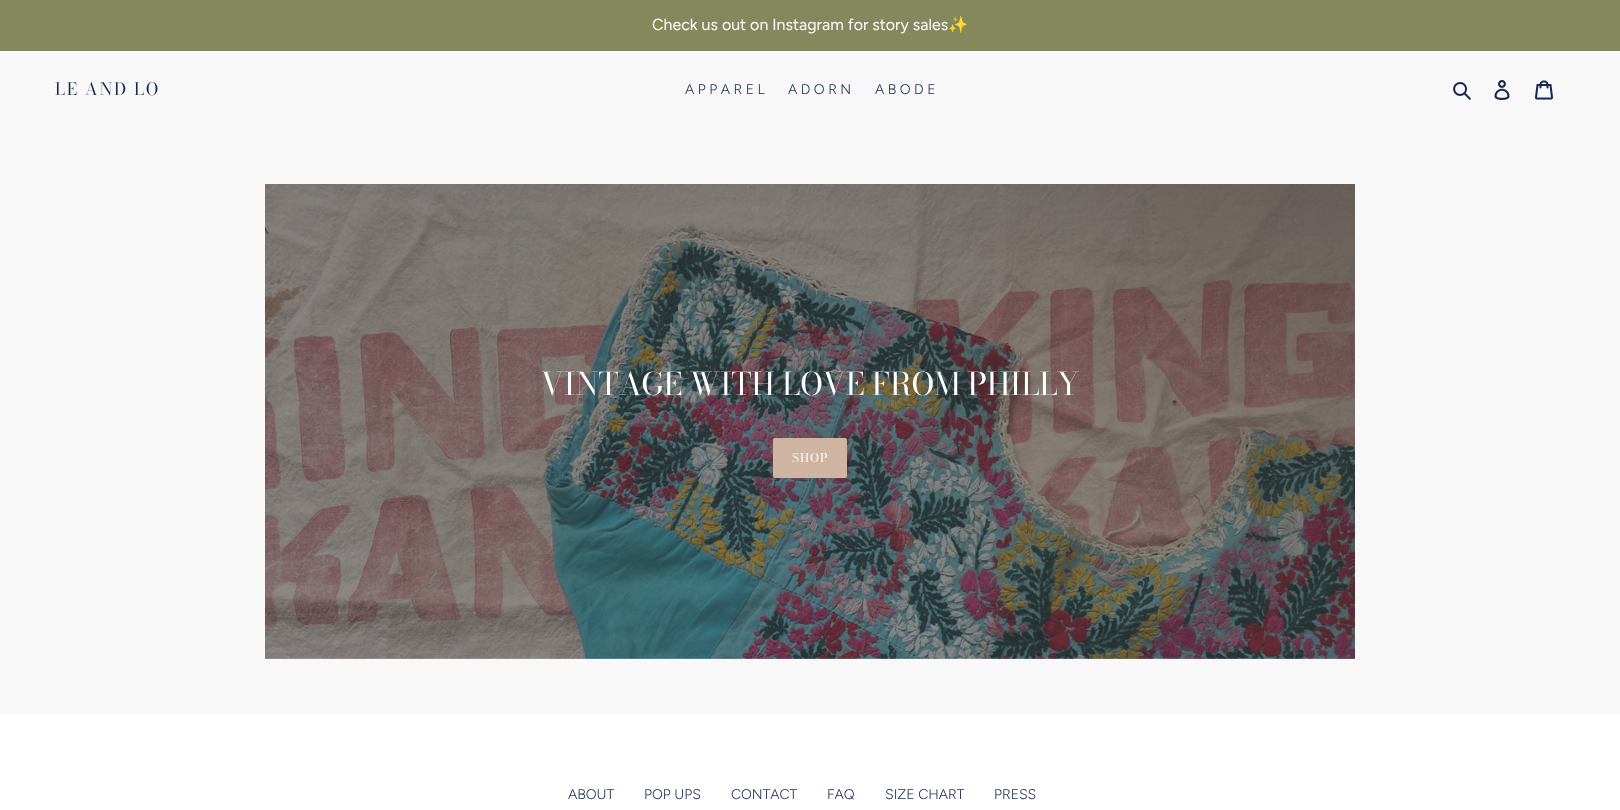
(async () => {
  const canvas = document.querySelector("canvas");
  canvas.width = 1620;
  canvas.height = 810;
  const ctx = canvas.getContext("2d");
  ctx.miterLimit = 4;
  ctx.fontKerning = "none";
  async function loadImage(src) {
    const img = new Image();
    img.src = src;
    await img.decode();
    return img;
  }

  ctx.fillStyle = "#f8f8f8";
  ctx.fillRect(0, 0, 1620, 810);
  ctx.fillStyle = "#84895d";
  ctx.fillRect(0, 0, 1620, 51);
  ctx.drawImage(await loadImage("img/1.png"), 1453, 82, 18, 18);
  ctx.drawImage(await loadImage("img/2.png"), 1494, 80, 16, 20);
  ctx.drawImage(await loadImage("img/3.png"), 1535, 80, 18, 20);
  ctx.drawImage(await loadImage("img/4.png"), 265, 184, 1090, 475);
  ctx.fillStyle = "#cfb4a2";
  ctx.beginPath();
  ctx.roundRect(773, 438, 74, 40, 2);
  ctx.fill();
  ctx.fillStyle = "#ffffff";
  ctx.fillRect(0, 714, 1620, 96);
  ctx.font = "16px Figtree";
  ctx.fillText("Check us out on Instagram for story sales", 652, 30);
  ctx.font = "16px Noto Color Emoji";
  ctx.fillText("✨", 948, 30);
  ctx.letterSpacing = "1.75px";
  ctx.font = "17px 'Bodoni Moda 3'";
  ctx.fillStyle = "#162950";
  ctx.fillText("LE AND LO", 55, 95);
  ctx.letterSpacing = "0px";
  ctx.font = "300 14px Figtree";
  for (const [text, x, y] of [
    ["A P P A R E L", 685, 94],
    ["A D O R N", 788, 94],
    ["A B O D E", 875, 94],
  ]) {
    ctx.fillText(text, x, y);
  }
  ctx.font = "31px Bodoni Moda";
  ctx.fillStyle = "#ffffff";
  ctx.fillText("VINTAGE WITH LOVE FROM PHILLY", 541, 395);
  ctx.letterSpacing = "1px";
  ctx.font = "12px 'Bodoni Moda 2'";
  ctx.fillText("SHOP", 792, 462);
  ctx.letterSpacing = "0px";
  ctx.font = "300 14px Figtree";
  ctx.fillStyle = "#162950";
  for (const [text, x, y] of [
    ["ABOUT", 568, 799],
    ["POP UPS", 644, 799],
    ["CONTACT", 731, 799],
    ["FAQ", 827, 799],
    ["SIZE CHART", 885, 799],
    ["PRESS", 994, 799],
  ]) {
    ctx.fillText(text, x, y);
  }
})();
